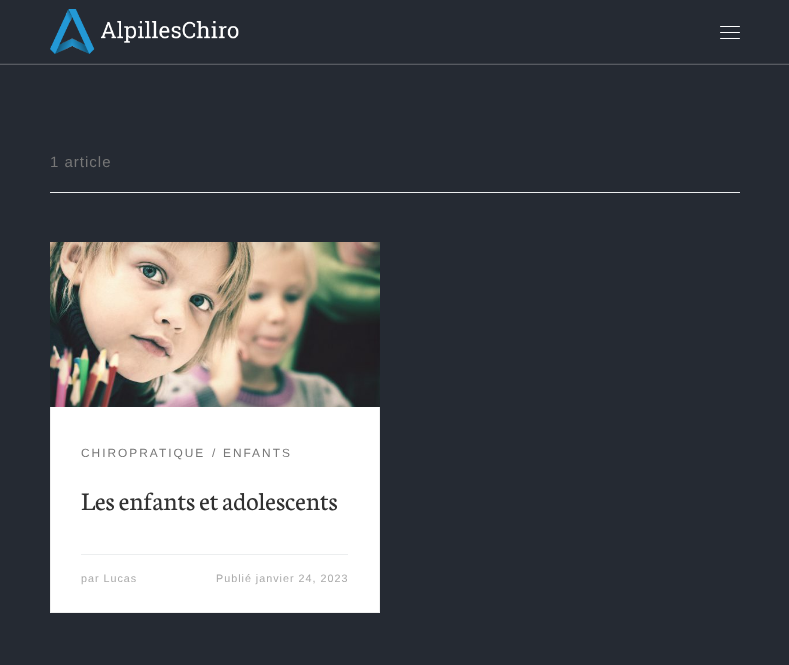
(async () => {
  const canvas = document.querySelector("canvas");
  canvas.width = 789;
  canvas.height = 665;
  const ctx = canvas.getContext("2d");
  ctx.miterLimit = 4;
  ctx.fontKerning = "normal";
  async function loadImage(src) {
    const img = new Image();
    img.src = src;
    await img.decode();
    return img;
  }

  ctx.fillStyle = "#252a33";
  ctx.fillRect(0, 0, 789, 665);
  ctx.fillStyle = "#575a61";
  ctx.fillRect(0, 64, 789, 1);
  ctx.drawImage(await loadImage("img/1.png"), 50, 9, 189, 45);
  ctx.fillStyle = "#ffffff";
  ctx.beginPath();
  ctx.roundRect(720, 26, 20, 1, 0.5);
  ctx.fill();
  ctx.beginPath();
  ctx.roundRect(720, 32, 20, 1, 0.5);
  ctx.fill();
  ctx.beginPath();
  ctx.roundRect(720, 38, 20, 1, 0.5);
  ctx.fill();
  for (const [x, y, w, h, color] of [
    [0, 63, 789, 1, "#353a42"],
    [50, 192, 690, 1, "#eceeef"],
    [51, 407, 328, 205, "#ffffff"],
  ]) {
    ctx.fillStyle = color;
    ctx.fillRect(x, y, w, h);
  }
  ctx.strokeStyle = "#efefef";
  ctx.strokeRect(50.5, 242.5, 329, 370);
  ctx.drawImage(await loadImage("img/2.png"), 50, 242, 330, 165);
  ctx.fillStyle = "#eceeef";
  ctx.fillRect(81, 554, 267, 1);
  ctx.letterSpacing = "1px";
  ctx.font = "15px Liberation Sans";
  ctx.fillStyle = "#777777";
  ctx.fillText("1 article", 50, 167);
  ctx.letterSpacing = "2px";
  ctx.font = "11.9px Liberation Sans";
  for (const [text, x, y] of [
    ["CHIROPRATIQUE", 81, 457],
    ["/", 212, 457],
    ["ENFANTS", 223, 457],
  ]) {
    ctx.fillText(text, x, y);
  }
  ctx.letterSpacing = "0px";
  ctx.font = "27px Neuton";
  ctx.fillStyle = "#313131";
  ctx.fillText("Les enfants et adolescents", 81, 510);
  ctx.letterSpacing = "1px";
  ctx.font = "10.75px Liberation Sans";
  ctx.fillStyle = "#aaaaaa";
  ctx.fillText("par Lucas", 81, 582);
  ctx.fillText("Publié janvier 24, 2023", 216, 582);
})();
